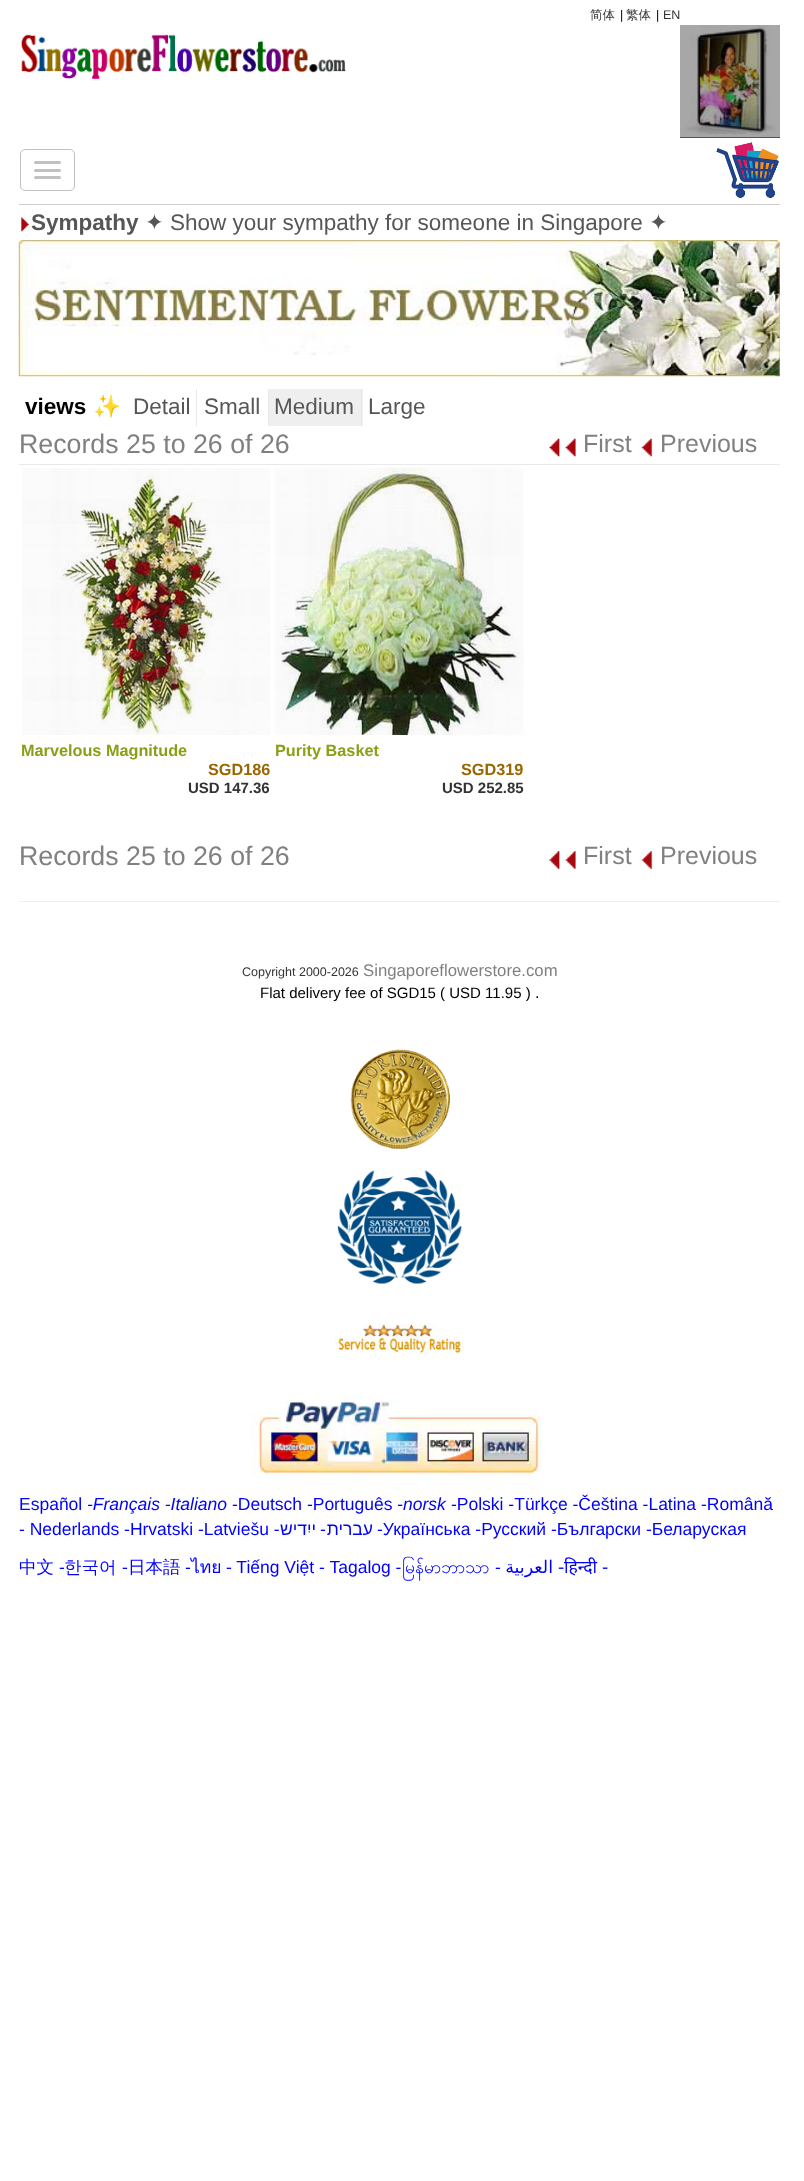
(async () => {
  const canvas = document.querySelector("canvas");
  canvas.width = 804;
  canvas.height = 2181;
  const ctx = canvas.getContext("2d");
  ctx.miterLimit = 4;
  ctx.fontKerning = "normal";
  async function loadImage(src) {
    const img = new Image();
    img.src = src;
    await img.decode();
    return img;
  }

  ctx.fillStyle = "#ffffff";
  ctx.fillRect(0, 0, 804, 2181);
  ctx.drawImage(await loadImage("img/1.png"), 21, 34, 325, 45);
  ctx.fillStyle = "#000000";
  ctx.fillRect(680, 25, 100, 113);
  ctx.drawImage(await loadImage("img/2.png"), 680, 25, 100, 113);
  ctx.beginPath();
  ctx.roundRect(20.5, 149.5, 54, 41, 4.5);
  ctx.strokeStyle = "#c1c1c1";
  ctx.stroke();
  ctx.fillStyle = "#c1c1c1";
  ctx.beginPath();
  ctx.roundRect(34, 161, 27, 3, 1.5);
  ctx.fill();
  ctx.beginPath();
  ctx.roundRect(34, 169, 27, 3, 1.5);
  ctx.fill();
  ctx.beginPath();
  ctx.roundRect(34, 176, 27, 3, 1.5);
  ctx.fill();
  ctx.drawImage(await loadImage("img/3.png"), 716, 142, 63, 56);
  ctx.fillStyle = "#cccccc";
  ctx.fillRect(19, 204, 761, 1);
  ctx.drawImage(await loadImage("img/4.png"), 21, 217, 8, 15);
  ctx.drawImage(await loadImage("img/5.png"), 18, 240, 762, 137);
  for (const [x, y, w, h, color] of [
    [19, 464, 761, 1, "#e9e9e9"],
    [196, 389, 1, 37, "#e9e9e9"],
    [268, 389, 1, 37, "#e9e9e9"],
    [269, 389, 94, 37, "#efefef"],
    [361, 389, 1, 37, "#e9e9e9"],
  ]) {
    ctx.fillStyle = color;
    ctx.fillRect(x, y, w, h);
  }
  ctx.drawImage(await loadImage("img/6.png"), 549, 438, 11, 19);
  ctx.drawImage(await loadImage("img/7.png"), 565, 438, 11, 19);
  ctx.drawImage(await loadImage("img/8.png"), 641, 438, 12, 19);
  ctx.drawImage(await loadImage("img/9.png"), 22, 468, 248, 267);
  ctx.drawImage(await loadImage("img/10.png"), 275, 467, 249, 268);
  ctx.drawImage(await loadImage("img/11.png"), 549, 851, 11, 18);
  ctx.drawImage(await loadImage("img/12.png"), 565, 851, 11, 18);
  ctx.drawImage(await loadImage("img/13.png"), 641, 851, 12, 18);
  ctx.fillStyle = "#eeeeee";
  ctx.fillRect(19, 901, 761, 1);
  ctx.drawImage(await loadImage("img/14.png"), 350, 1049, 100, 100);
  ctx.drawImage(await loadImage("img/15.png"), 337, 1170, 125, 114);
  ctx.drawImage(await loadImage("img/16.png"), 335, 1323, 129, 31);
  ctx.drawImage(await loadImage("img/17.png"), 251, 1394, 291, 91);
  ctx.font = "500 12.5px WenQuanYi Zen Hei";
  ctx.fillStyle = "#333333";
  ctx.fillText("简体", 590, 19);
  ctx.font = "12.5px Liberation Sans";
  ctx.fillStyle = "#000000";
  ctx.fillText("|", 620, 19);
  ctx.font = "500 12.5px WenQuanYi Zen Hei";
  ctx.fillStyle = "#333333";
  ctx.fillText("繁体", 626, 19);
  ctx.font = "12.5px Liberation Sans";
  ctx.fillStyle = "#000000";
  ctx.fillText("|", 656, 19);
  ctx.fillStyle = "#333333";
  ctx.fillText("EN", 663, 19);
  ctx.font = "bold 22.5px Liberation Sans";
  ctx.fillStyle = "#565656";
  ctx.fillText("Sympathy", 31, 230);
  ctx.font = "22.5px DejaVu Sans";
  ctx.fillText("✦", 145, 230);
  ctx.font = "22.5px Liberation Sans";
  ctx.fillText("Show your sympathy for someone in Singapore", 170, 230);
  ctx.font = "22.5px DejaVu Sans";
  ctx.fillText("✦", 649, 230);
  ctx.font = "bold 22.5px Liberation Sans";
  ctx.fillStyle = "#000000";
  ctx.fillText("views", 25, 414);
  ctx.font = "bold 22.5px Noto Color Emoji";
  ctx.fillText("✨", 93, 414);
  ctx.font = "22.5px Liberation Sans";
  ctx.fillStyle = "#565656";
  for (const [text, x, y] of [
    ["Detail", 133, 414],
    ["Small", 204, 414],
    ["Medium", 274, 414],
    ["Large", 368, 414],
  ]) {
    ctx.fillText(text, x, y);
  }
  ctx.font = "26.75px Liberation Sans";
  ctx.fillStyle = "#808080";
  ctx.fillText("Records 25 to 26 of 26", 19, 453);
  ctx.font = "25px Liberation Sans";
  ctx.fillText("First", 583, 452);
  ctx.fillText("Previous", 660, 452);
  ctx.font = "bold 16.25px Liberation Sans";
  ctx.fillStyle = "#88a016";
  ctx.fillText("Marvelous Magnitude", 21, 756);
  ctx.fillStyle = "#996600";
  ctx.fillText("SGD186", 208, 775);
  ctx.font = "bold 15px Liberation Sans";
  ctx.fillStyle = "#333333";
  ctx.fillText("USD 147.36", 188, 793);
  ctx.font = "bold 16.25px Liberation Sans";
  ctx.fillStyle = "#88a016";
  ctx.fillText("Purity Basket", 275, 756);
  ctx.fillStyle = "#996600";
  ctx.fillText("SGD319", 461, 775);
  ctx.font = "bold 15px Liberation Sans";
  ctx.fillStyle = "#333333";
  ctx.fillText("USD 252.85", 442, 793);
  ctx.font = "26.75px Liberation Sans";
  ctx.fillStyle = "#808080";
  ctx.fillText("Records 25 to 26 of 26", 19, 865);
  ctx.font = "25px Liberation Sans";
  ctx.fillText("First", 583, 864);
  ctx.fillText("Previous", 660, 864);
  ctx.font = "12.5px Liberation Sans";
  ctx.fillStyle = "#333333";
  ctx.fillText("Copyright 2000-2026", 242, 976);
  ctx.font = "16.75px Liberation Sans";
  ctx.fillStyle = "#808080";
  ctx.fillText("Singaporeflowerstore.com", 363, 976);
  ctx.font = "15px Liberation Sans";
  ctx.fillStyle = "#000000";
  ctx.fillText("Flat delivery fee of SGD15 ( USD 11.95 )", 260, 998);
  ctx.font = "16.25px Liberation Sans";
  ctx.fillText(".", 535, 998);
  ctx.font = "17.5px Liberation Sans";
  ctx.fillStyle = "#0000ff";
  ctx.fillText("Español", 19, 1510);
  ctx.font = "italic 17.5px Liberation Sans";
  ctx.fillText("-Français -Italiano", 87, 1510);
  ctx.font = "17.5px Liberation Sans";
  ctx.fillText("-Deutsch -Português -", 232, 1510);
  ctx.font = "italic 17.5px Liberation Sans";
  ctx.fillText("norsk", 403, 1510);
  ctx.font = "17.5px Liberation Sans";
  ctx.fillText("-Polski -Türkçe -Čeština -Latina -Română", 451, 1510);
  ctx.fillText("- Nederlands -Hrvatski -Latviešu -", 19, 1535);
  ctx.direction = "rtl";
  ctx.fillText("ייִדיש", 316, 1535);
  ctx.direction = "ltr";
  ctx.fillText("-", 320, 1535);
  ctx.direction = "rtl";
  ctx.fillText("עברית", 373, 1535);
  ctx.direction = "ltr";
  ctx.fillText("-Українська -Русский -Български -Беларуская", 377, 1535);
  ctx.font = "500 17.5px WenQuanYi Zen Hei";
  ctx.fillText("中文", 19, 1573);
  ctx.font = "17.5px Liberation Sans";
  ctx.fillText("-", 59, 1573);
  ctx.font = "500 17.5px WenQuanYi Zen Hei";
  ctx.fillText("한국어", 64, 1573);
  ctx.font = "17.5px Liberation Sans";
  ctx.fillText("-", 122, 1573);
  ctx.font = "500 17.5px WenQuanYi Zen Hei";
  ctx.fillText("日本語", 128, 1573);
  ctx.font = "17.5px Liberation Sans";
  ctx.fillText("-", 185, 1573);
  ctx.font = "17.5px Loma";
  ctx.fillText("ไทย", 191, 1573);
  ctx.font = "17.5px Liberation Sans";
  ctx.fillText("- Tiếng Việt - Tagalog -", 226, 1573);
  ctx.font = "17.5px Padauk";
  ctx.fillText("မြန်မာဘာသာ", 402, 1573);
  ctx.font = "17.5px Liberation Sans";
  ctx.fillText("-", 495, 1573);
  ctx.direction = "rtl";
  ctx.font = "17.5px DejaVu Sans";
  ctx.fillText("العربية", 553, 1573);
  ctx.direction = "ltr";
  ctx.fillText("-", 558, 1573);
  ctx.font = "17.5px Noto Sans";
  ctx.fillText("हिन्दी", 564, 1573);
  ctx.font = "17.5px DejaVu Sans";
  ctx.fillText("-", 602, 1573);
})();
